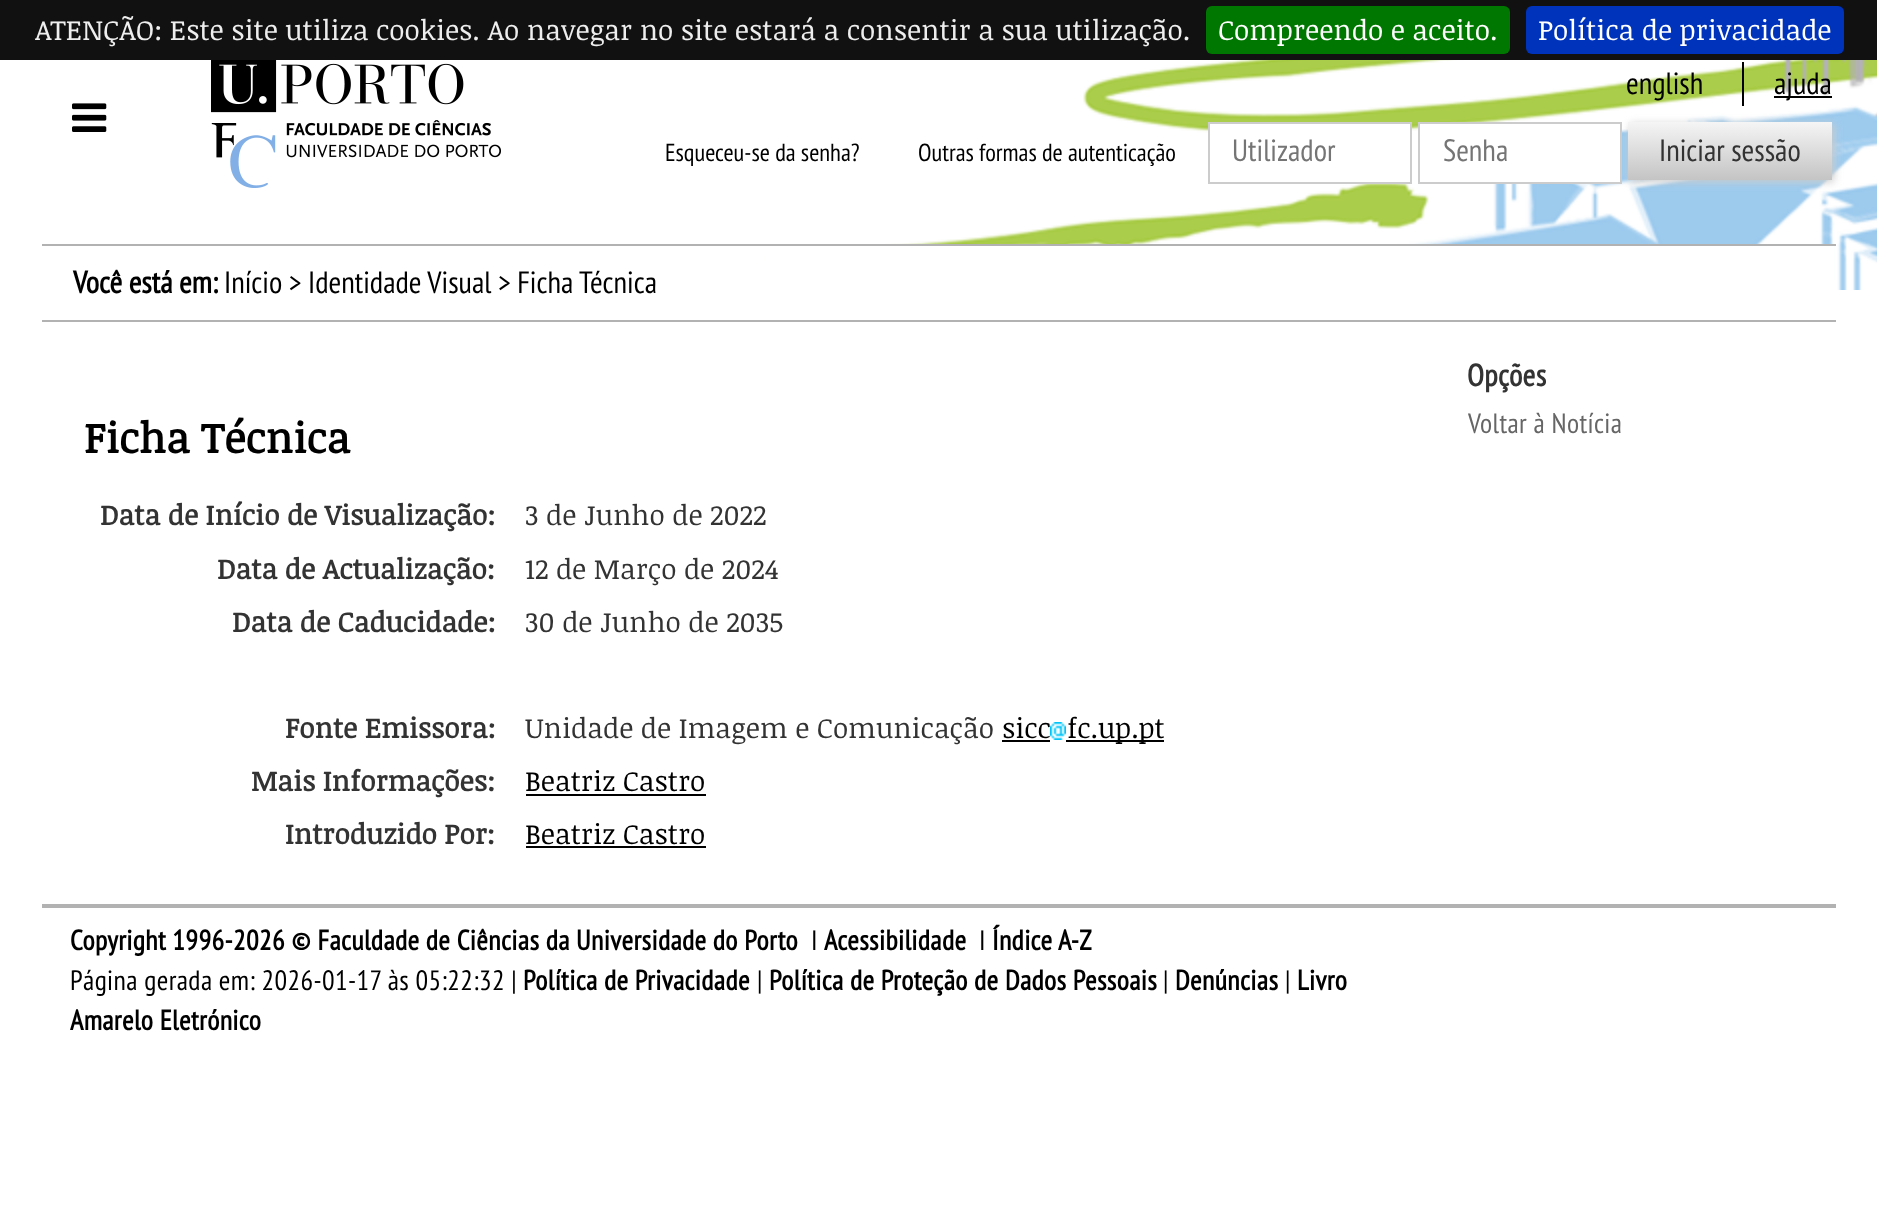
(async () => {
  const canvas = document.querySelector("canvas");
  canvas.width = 1877;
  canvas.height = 1218;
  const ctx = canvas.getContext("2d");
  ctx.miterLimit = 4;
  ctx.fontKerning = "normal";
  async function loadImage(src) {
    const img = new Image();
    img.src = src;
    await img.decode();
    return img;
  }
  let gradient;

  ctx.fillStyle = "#ffffff";
  ctx.fillRect(0, 0, 1877, 1218);
  ctx.drawImage(await loadImage("img/1.png"), 637, 60, 1240, 230);
  ctx.fillStyle = "#111111";
  ctx.fillRect(0, 0, 1877, 60);
  ctx.fillStyle = "#007700";
  ctx.beginPath();
  ctx.roundRect(1206, 6, 304, 48, 6);
  ctx.fill();
  ctx.fillStyle = "#0033bb";
  ctx.beginPath();
  ctx.roundRect(1526, 6, 318, 48, 6);
  ctx.fill();
  ctx.drawImage(await loadImage("img/2.png"), 72, 103, 35, 29);
  ctx.drawImage(await loadImage("img/3.png"), 211, 60, 290, 128);
  ctx.fillStyle = "#000000";
  ctx.fillRect(1742, 62, 2, 44);
  ctx.fillRect(1774, 96, 58, 2);
  ctx.fillStyle = "#ffffff";
  ctx.beginPath();
  ctx.rect(1209, 123, 202, 60);
  ctx.fill();
  ctx.strokeStyle = "#cccccc";
  ctx.lineWidth = 2;
  ctx.stroke();
  ctx.beginPath();
  ctx.rect(1419, 123, 202, 60);
  ctx.fill();
  ctx.stroke();
  ctx.fillStyle = "#cccccc";
  ctx.filter = "blur(4px)";
  ctx.beginPath();
  ctx.rect(1630, 124, 204, 58);
  ctx.fill();
  ctx.filter = "none";
  gradient = ctx.createLinearGradient(1730, 122, 1730, 180);
  gradient.addColorStop(0, "#f5f5f5");
  gradient.addColorStop(1, "#c4c4c4");
  ctx.fillStyle = gradient;
  ctx.fillRect(1628, 122, 204, 58);
  for (const [x, y, w, h, color] of [
    [765, 246, 1069, 44, "#ffffff"],
    [42, 244, 1794, 2, "#b2b2b2"],
    [42, 320, 1794, 2, "#b2b2b2"],
    [1002, 740, 48, 2, "#000000"],
  ]) {
    ctx.fillStyle = color;
    ctx.fillRect(x, y, w, h);
  }
  ctx.drawImage(await loadImage("img/4.png"), 1050, 722, 16, 18);
  for (const [x, y, w, h, color] of [
    [1066, 740, 98, 2, "#000000"],
    [526, 794, 180, 2, "#000000"],
    [526, 846, 180, 2, "#000000"],
    [42, 904, 1794, 4, "#b2b2b2"],
  ]) {
    ctx.fillStyle = color;
    ctx.fillRect(x, y, w, h);
  }
  ctx.font = "28px Noticia Text";
  ctx.fillStyle = "#eeeeee";
  ctx.fillText("ATENÇÃO: Este site utiliza cookies. Ao navegar no site estará a consentir a sua utilização.", 35, 40);
  ctx.fillStyle = "#ffffff";
  ctx.fillText("Compreendo e aceito.", 1218, 40);
  ctx.fillText("Política de privacidade", 1538, 40);
  ctx.font = "30.75px PT Sans Narrow";
  ctx.fillStyle = "#000000";
  ctx.fillText("english", 1626, 94);
  ctx.fillText("ajuda", 1774, 94);
  ctx.font = "24.6px PT Sans Narrow";
  ctx.fillText("Esqueceu-se da senha?", 665, 161);
  ctx.fillText("Outras formas de autenticação", 918, 161);
  ctx.font = "30.75px PT Sans Narrow";
  ctx.fillStyle = "#757575";
  ctx.fillText("Utilizador", 1232, 161);
  ctx.fillText("Senha", 1443, 161);
  ctx.fillStyle = "#333333";
  ctx.fillText("Iniciar sessão", 1659, 161);
  ctx.font = "bold 30.75px PT Sans Narrow";
  ctx.fillStyle = "#000000";
  ctx.fillText("Você está em:", 73, 293);
  ctx.font = "30.75px PT Sans Narrow";
  ctx.fillText("Início > Identidade Visual > Ficha Técnica", 224, 293);
  ctx.letterSpacing = "0.4px";
  ctx.font = "bold 30.75px PT Sans Narrow";
  ctx.fillStyle = "#333333";
  ctx.fillText("Opções", 1467, 386);
  ctx.font = "28px PT Sans Narrow";
  ctx.fillStyle = "#666666";
  ctx.fillText("Voltar à Notícia", 1468, 433);
  ctx.letterSpacing = "0px";
  ctx.font = "bold 42px Noticia Text";
  ctx.fillStyle = "#000000";
  ctx.fillText("Ficha Técnica", 84, 453);
  ctx.font = "bold 28px Noticia Text";
  ctx.fillStyle = "#333333";
  ctx.fillText("Data de Início de Visualização:", 100, 525);
  ctx.font = "28px Noticia Text";
  ctx.fillText("3 de Junho de 2022", 525, 525);
  ctx.font = "bold 28px Noticia Text";
  ctx.fillText("Data de Actualização:", 217, 579);
  ctx.font = "28px Noticia Text";
  ctx.fillText("12 de Março de 2024", 525, 579);
  ctx.font = "bold 28px Noticia Text";
  ctx.fillText("Data de Caducidade:", 232, 632);
  ctx.font = "28px Noticia Text";
  ctx.fillText("30 de Junho de 2035", 525, 632);
  ctx.font = "bold 28px Noticia Text";
  ctx.fillText("Fonte Emissora:", 285, 738);
  ctx.font = "28px Noticia Text";
  ctx.fillText("Unidade de Imagem e Comunicação", 525, 738);
  ctx.fillStyle = "#000000";
  ctx.fillText("sicc", 1002, 738);
  ctx.fillText("fc.up.pt", 1067, 738);
  ctx.font = "bold 28px Noticia Text";
  ctx.fillStyle = "#333333";
  ctx.fillText("Mais Informações:", 251, 791);
  ctx.font = "28px Noticia Text";
  ctx.fillStyle = "#000000";
  ctx.fillText("Beatriz Castro", 525, 791);
  ctx.font = "bold 28px Noticia Text";
  ctx.fillStyle = "#333333";
  ctx.fillText("Introduzido Por:", 285, 844);
  ctx.font = "28px Noticia Text";
  ctx.fillStyle = "#000000";
  ctx.fillText("Beatriz Castro", 525, 844);
  ctx.letterSpacing = "0.4px";
  ctx.font = "bold 28px PT Sans Narrow";
  ctx.fillText("Copyright 1996-2026 © Faculdade de Ciências da Universidade do Porto", 70, 950);
  ctx.font = "28px PT Sans Narrow";
  ctx.fillText("I", 811, 950);
  ctx.font = "bold 28px PT Sans Narrow";
  ctx.fillText("Acessibilidade", 824, 950);
  ctx.font = "28px PT Sans Narrow";
  ctx.fillText("I", 979, 950);
  ctx.font = "bold 28px PT Sans Narrow";
  ctx.fillText("Índice A-Z", 992, 950);
  ctx.font = "28px PT Sans Narrow";
  ctx.fillText("Página gerada em: 2026-01-17 às 05:22:32 |", 70, 990);
  ctx.font = "bold 28px PT Sans Narrow";
  ctx.fillText("Política de Privacidade", 523, 990);
  ctx.font = "28px PT Sans Narrow";
  ctx.fillText("|", 757, 990);
  ctx.font = "bold 28px PT Sans Narrow";
  ctx.fillText("Política de Proteção de Dados Pessoais", 769, 990);
  ctx.font = "28px PT Sans Narrow";
  ctx.fillText("|", 1163, 990);
  ctx.font = "bold 28px PT Sans Narrow";
  ctx.fillText("Denúncias", 1175, 990);
  ctx.font = "28px PT Sans Narrow";
  ctx.fillText("|", 1285, 990);
  ctx.font = "bold 28px PT Sans Narrow";
  ctx.fillText("Livro", 1297, 990);
  ctx.fillText("Amarelo Eletrónico", 70, 1030);
})();
